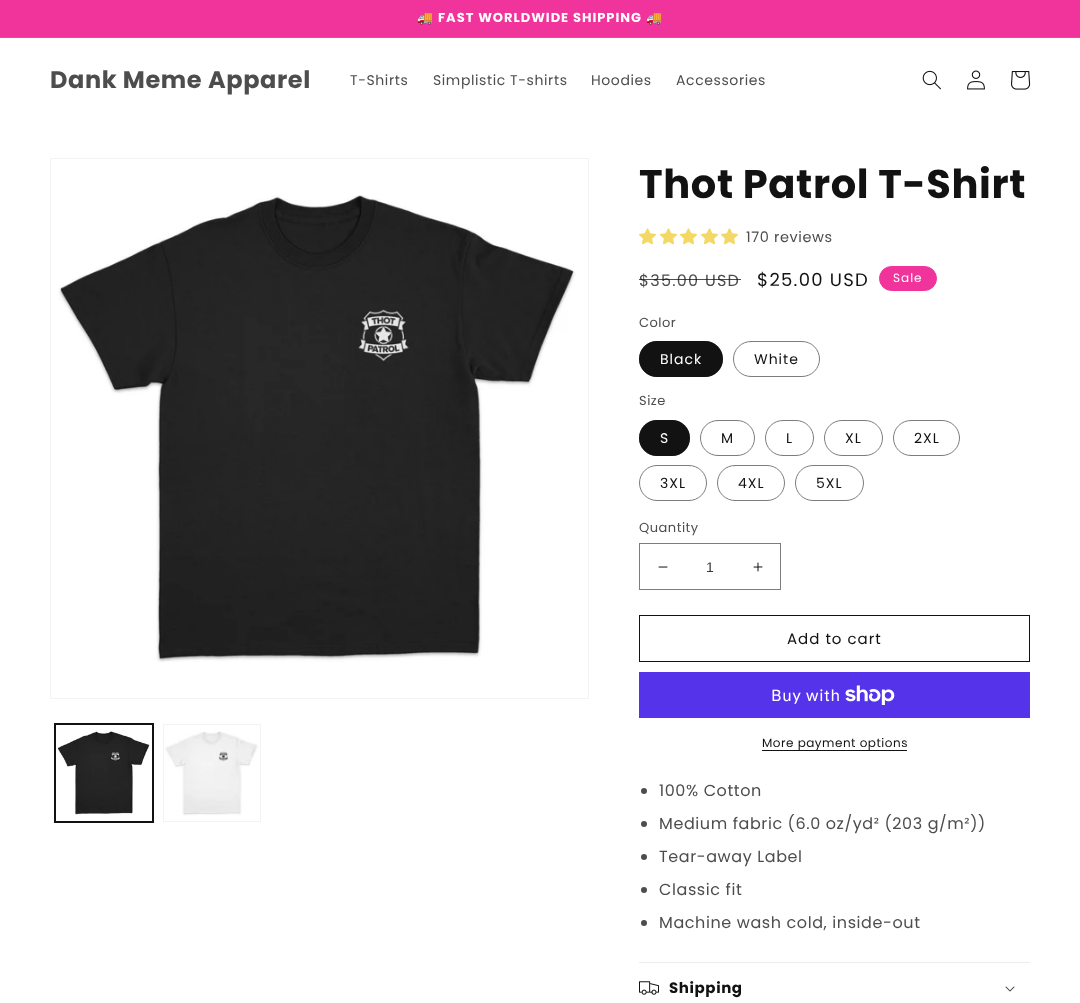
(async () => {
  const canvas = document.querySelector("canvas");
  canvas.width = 1080;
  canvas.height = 1003;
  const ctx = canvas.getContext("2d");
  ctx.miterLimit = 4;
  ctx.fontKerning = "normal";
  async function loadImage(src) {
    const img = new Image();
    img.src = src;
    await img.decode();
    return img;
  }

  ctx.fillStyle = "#ffffff";
  ctx.fillRect(0, 0, 1080, 1003);
  ctx.fillStyle = "#f0349b";
  ctx.fillRect(0, 0, 1080, 37);
  ctx.fillStyle = "#f144a3";
  ctx.fillRect(0, 37, 1080, 1);
  ctx.drawImage(await loadImage("img/1.png"), 922, 70, 19, 20);
  ctx.drawImage(await loadImage("img/2.png"), 967, 70, 18, 20);
  ctx.drawImage(await loadImage("img/3.png"), 1011, 71, 20, 19);
  ctx.strokeStyle = "#f3f3f3";
  ctx.strokeRect(50.5, 158.5, 538, 540);
  ctx.drawImage(await loadImage("img/4.png"), 58, 195, 518, 467);
  ctx.strokeStyle = "#121212";
  ctx.strokeRect(54.5, 723.5, 99, 99);
  ctx.strokeRect(55.5, 724.5, 97, 97);
  ctx.drawImage(await loadImage("img/5.png"), 57, 730, 93, 85);
  ctx.strokeStyle = "#f3f3f3";
  ctx.strokeRect(163.5, 724.5, 97, 97);
  ctx.drawImage(await loadImage("img/6.png"), 165, 731, 93, 85);
  ctx.drawImage(await loadImage("img/7.png"), 639, 228, 17, 17);
  ctx.drawImage(await loadImage("img/7.png"), 660, 228, 17, 17);
  ctx.drawImage(await loadImage("img/7.png"), 680, 228, 17, 17);
  ctx.drawImage(await loadImage("img/7.png"), 701, 228, 17, 17);
  ctx.drawImage(await loadImage("img/7.png"), 721, 228, 17, 17);
  ctx.fillStyle = "#f0349b";
  ctx.beginPath();
  ctx.roundRect(879.5, 266.5, 57, 24, 12);
  ctx.fill();
  ctx.strokeStyle = "#f0349b";
  ctx.stroke();
  ctx.fillStyle = "#121212";
  ctx.beginPath();
  ctx.roundRect(639, 341, 84, 36, 18);
  ctx.fill();
  ctx.beginPath();
  ctx.roundRect(639.5, 341.5, 83, 35, 17.5);
  ctx.strokeStyle = "rgba(18, 18, 18, 0.55)";
  ctx.stroke();
  ctx.beginPath();
  ctx.roundRect(733.5, 341.5, 86, 35, 17.5);
  ctx.strokeStyle = "#7d7d7d";
  ctx.stroke();
  ctx.beginPath();
  ctx.roundRect(639, 420, 51, 36, 18);
  ctx.fill();
  ctx.beginPath();
  ctx.roundRect(639.5, 420.5, 50, 35, 17.5);
  ctx.strokeStyle = "rgba(18, 18, 18, 0.55)";
  ctx.stroke();
  ctx.beginPath();
  ctx.roundRect(700.5, 420.5, 54, 35, 17.5);
  ctx.strokeStyle = "#7d7d7d";
  ctx.stroke();
  ctx.beginPath();
  ctx.roundRect(765.5, 420.5, 48, 35, 17.5);
  ctx.stroke();
  ctx.beginPath();
  ctx.roundRect(824.5, 420.5, 58, 35, 17.5);
  ctx.stroke();
  ctx.beginPath();
  ctx.roundRect(893.5, 420.5, 66, 35, 17.5);
  ctx.stroke();
  ctx.beginPath();
  ctx.roundRect(639.5, 465.5, 67, 35, 17.5);
  ctx.stroke();
  ctx.beginPath();
  ctx.roundRect(717.5, 465.5, 67, 35, 17.5);
  ctx.stroke();
  ctx.beginPath();
  ctx.roundRect(795.5, 465.5, 68, 35, 17.5);
  ctx.stroke();
  ctx.drawImage(await loadImage("img/8.png"), 658, 566, 10, 2);
  ctx.drawImage(await loadImage("img/9.png"), 753, 562, 10, 10);
  ctx.strokeRect(639.5, 543.5, 141, 46);
  ctx.strokeStyle = "#121212";
  ctx.strokeRect(639.5, 615.5, 390, 46);
  ctx.fillStyle = "#5433eb";
  ctx.fillRect(639, 672, 391, 46);
  ctx.drawImage(await loadImage("img/10.png"), 845, 685, 50, 20);
  ctx.fillStyle = "#121212";
  ctx.fillRect(762, 750, 145, 1);
  ctx.fillStyle = "#4d4d4d";
  ctx.beginPath();
  ctx.arc(644, 791, 3, 0, Math.PI * 2);
  ctx.fill();
  ctx.beginPath();
  ctx.arc(644, 824, 3, 0, Math.PI * 2);
  ctx.fill();
  ctx.beginPath();
  ctx.arc(644, 857, 3, 0, Math.PI * 2);
  ctx.fill();
  ctx.beginPath();
  ctx.arc(644, 890, 3, 0, Math.PI * 2);
  ctx.fill();
  ctx.beginPath();
  ctx.arc(644, 923, 3, 0, Math.PI * 2);
  ctx.fill();
  ctx.fillStyle = "#ececec";
  ctx.fillRect(639, 962, 391, 1);
  ctx.drawImage(await loadImage("img/11.png"), 639, 981, 20, 14);
  ctx.drawImage(await loadImage("img/12.png"), 1005, 986, 10, 6);
  ctx.letterSpacing = "1px";
  ctx.font = "bold 13px Noto Color Emoji";
  ctx.fillStyle = "#ffffff";
  ctx.fillText("🚚", 417, 22);
  ctx.font = "bold 13px Poppins";
  ctx.fillText("FAST WORLDWIDE SHIPPING", 438, 22);
  ctx.font = "bold 13px Noto Color Emoji";
  ctx.fillText("🚚", 646, 22);
  ctx.letterSpacing = "0.6px";
  ctx.font = "bold 24px Poppins";
  ctx.fillStyle = "#4d4d4d";
  ctx.fillText("Dank Meme Apparel", 50, 88);
  ctx.font = "14px Poppins";
  for (const [text, x, y] of [
    ["T-Shirts", 350, 85],
    ["Simplistic T-shirts", 433, 85],
    ["Hoodies", 591, 85],
    ["Accessories", 676, 85],
  ]) {
    ctx.fillText(text, x, y);
  }
  ctx.font = "bold 40px Poppins";
  ctx.fillStyle = "#121212";
  ctx.fillText("Thot Patrol T-Shirt", 639, 198);
  ctx.font = "14.5px Poppins";
  ctx.fillStyle = "#4d4d4d";
  ctx.fillText("170 reviews", 746, 242);
  ctx.letterSpacing = "1.25px";
  ctx.font = "16px Poppins";
  ctx.fillText("$35.00 USD", 639, 286);
  ctx.fillStyle = "rgba(18, 18, 18, 0.75)";
  ctx.fillRect(639, 279, 102, 1);
  ctx.font = "18px Poppins";
  ctx.fillStyle = "#121212";
  ctx.fillText("$25.00 USD", 757, 286);
  ctx.letterSpacing = "1px";
  ctx.font = "12px Poppins";
  ctx.fillStyle = "#ffffff";
  ctx.fillText("Sale", 893, 282);
  ctx.letterSpacing = "0.5px";
  ctx.font = "13px Poppins";
  ctx.fillStyle = "#4d4d4d";
  ctx.fillText("Color", 639, 327);
  ctx.letterSpacing = "1px";
  ctx.font = "14px Poppins";
  ctx.fillStyle = "#ffffff";
  ctx.fillText("Black", 660, 364);
  ctx.fillStyle = "#121212";
  ctx.fillText("White", 754, 364);
  ctx.letterSpacing = "0.5px";
  ctx.font = "13px Poppins";
  ctx.fillStyle = "#4d4d4d";
  ctx.fillText("Size", 639, 405);
  ctx.letterSpacing = "1px";
  ctx.font = "14px Poppins";
  ctx.fillStyle = "#ffffff";
  ctx.fillText("S", 660, 443);
  ctx.fillStyle = "#121212";
  for (const [text, x, y] of [
    ["M", 721, 443],
    ["L", 786, 443],
    ["XL", 845, 443],
    ["2XL", 914, 443],
    ["3XL", 660, 488],
    ["4XL", 738, 488],
    ["5XL", 816, 488],
  ]) {
    ctx.fillText(text, x, y);
  }
  ctx.letterSpacing = "0.5px";
  ctx.font = "13px Poppins";
  ctx.fillStyle = "#4d4d4d";
  ctx.fillText("Quantity", 639, 532);
  ctx.letterSpacing = "0px";
  ctx.font = "14px Liberation Sans";
  ctx.fillStyle = "#363636";
  ctx.fillText("1", 706, 572);
  ctx.letterSpacing = "1px";
  ctx.font = "15px Poppins";
  ctx.fillStyle = "#121212";
  ctx.fillText("Add to cart", 787, 644);
  ctx.letterSpacing = "0.6px";
  ctx.font = "16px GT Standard";
  ctx.fillStyle = "#ffffff";
  ctx.fillText("Buy with", 771, 701);
  ctx.letterSpacing = "0.5px";
  ctx.font = "12px Poppins";
  ctx.fillStyle = "#121212";
  ctx.fillText("More payment options", 762, 747);
  ctx.letterSpacing = "0.6px";
  ctx.font = "16px Poppins";
  ctx.fillStyle = "#4d4d4d";
  for (const [text, x, y] of [
    ["100% Cotton", 659, 796],
    ["Medium fabric (6.0 oz/yd² (203 g/m²))", 659, 829],
    ["Tear-away Label", 659, 862],
    ["Classic fit", 659, 895],
    ["Machine wash cold, inside-out", 659, 928],
  ]) {
    ctx.fillText(text, x, y);
  }
  ctx.font = "bold 15px Poppins";
  ctx.fillStyle = "#121212";
  ctx.fillText("Shipping", 669, 993);
})();
